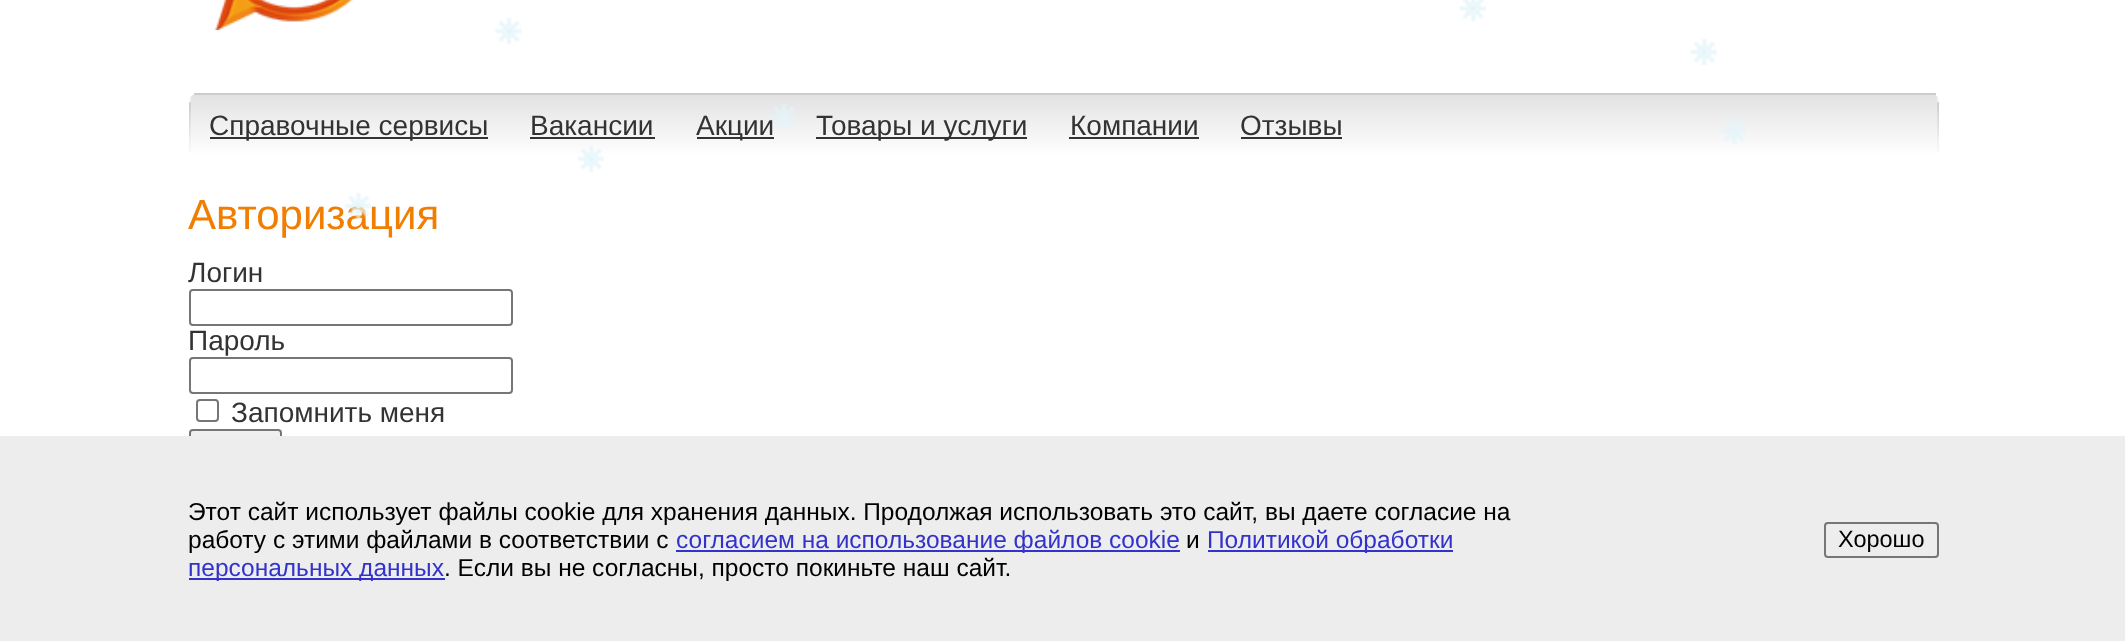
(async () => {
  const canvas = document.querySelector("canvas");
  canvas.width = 2125;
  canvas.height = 641;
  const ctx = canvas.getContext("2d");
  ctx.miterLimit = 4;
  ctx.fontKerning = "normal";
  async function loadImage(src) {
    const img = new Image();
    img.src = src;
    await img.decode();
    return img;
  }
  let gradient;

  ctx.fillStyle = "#ffffff";
  ctx.fillRect(0, 0, 2125, 641);
  ctx.drawImage(await loadImage("img/1.png"), 1459, 0, 27, 22);
  ctx.drawImage(await loadImage("img/2.png"), 495, 17, 27, 27);
  ctx.drawImage(await loadImage("img/3.png"), 1690, 38, 27, 27);
  ctx.drawImage(await loadImage("img/5.png"), 214, 0, 140, 30);
  ctx.save();
  ctx.beginPath();
  ctx.roundRect(189, 93, 1750, 63, [9, 9, 0, 0]);
  ctx.clip();
  gradient = ctx.createLinearGradient(1064, 94, 1064, 156);
  gradient.addColorStop(0, "#e2e2e2");
  gradient.addColorStop(1, "#ffffff");
  ctx.fillStyle = gradient;
  ctx.fillRect(189, 95, 1750, 61);
  ctx.restore();
  ctx.fillStyle = "#cccccc";
  ctx.fillRect(194, 93, 1742, 2);
  ctx.drawImage(await loadImage("img/6.png"), 189, 98, 2, 54);
  for (const [x, y, w, h, color] of [
    [210, 137, 278, 2, "#333333"],
    [530, 137, 125, 2, "#333333"],
    [697, 137, 77, 2, "#333333"],
    [816, 137, 211, 2, "#333333"],
    [1069, 137, 130, 2, "#333333"],
    [1241, 137, 101, 2, "#333333"],
  ]) {
    ctx.fillStyle = color;
    ctx.fillRect(x, y, w, h);
  }
  ctx.drawImage(await loadImage("img/7.png"), 1937, 98, 2, 54);
  ctx.beginPath();
  ctx.roundRect(190, 290, 322, 35, 3);
  ctx.strokeStyle = "#767676";
  ctx.lineWidth = 2;
  ctx.stroke();
  ctx.beginPath();
  ctx.roundRect(190, 358, 322, 35, 3);
  ctx.stroke();
  ctx.beginPath();
  ctx.roundRect(197, 400, 21, 21, 3);
  ctx.stroke();
  ctx.fillStyle = "#efefef";
  ctx.beginPath();
  ctx.roundRect(190, 430, 91, 35, 3);
  ctx.fill();
  ctx.stroke();
  for (const [x, y, w, h, color] of [
    [0, 436, 2125, 205, "#ededed"],
    [676, 550, 504, 2, "#3333cc"],
    [1208, 550, 245, 2, "#3333cc"],
    [189, 578, 256, 2, "#3333cc"],
  ]) {
    ctx.fillStyle = color;
    ctx.fillRect(x, y, w, h);
  }
  ctx.beginPath();
  ctx.roundRect(1825, 523, 113, 34, 3);
  ctx.stroke();
  ctx.drawImage(await loadImage("img/8.png"), 1720, 117, 27, 27);
  ctx.drawImage(await loadImage("img/9.png"), 577, 145, 27, 27);
  ctx.font = "28px Liberation Sans";
  ctx.fillStyle = "#333333";
  for (const [text, x, y] of [
    ["Справочные сервисы", 209, 135],
    ["Вакансии", 530, 135],
    ["Акции", 696, 135],
  ]) {
    ctx.fillText(text, x, y);
  }
  ctx.drawImage(await loadImage("img/4.png"), 770, 103, 26, 27);
  for (const [text, x, y] of [
    ["Товары и услуги", 816, 135],
    ["Компании", 1070, 135],
    ["Отзывы", 1240, 135],
  ]) {
    ctx.fillText(text, x, y);
  }
  ctx.font = "42px Liberation Sans";
  ctx.fillStyle = "#f17e00";
  ctx.fillText("Авторизация", 188, 229);
  ctx.font = "28px Liberation Sans";
  ctx.fillStyle = "#333333";
  for (const [text, x, y] of [
    ["Логин", 188, 282],
    ["Пароль", 188, 350],
    ["Запомнить меня", 231, 422],
  ]) {
    ctx.fillText(text, x, y);
  }
  ctx.font = "24.5px Liberation Sans";
  ctx.fillStyle = "#000000";
  ctx.fillText("Этот сайт использует файлы cookie для хранения данных. Продолжая использовать это сайт, вы даете согласие на", 188, 520);
  ctx.fillText("работу с этими файлами в соответствии с", 188, 548);
  ctx.fillStyle = "#3333cc";
  ctx.fillText("согласием на использование файлов cookie", 676, 548);
  ctx.fillStyle = "#000000";
  ctx.fillText("и", 1186, 548);
  ctx.fillStyle = "#3333cc";
  ctx.fillText("Политикой обработки", 1207, 548);
  ctx.fillText("персональных данных", 188, 576);
  ctx.fillStyle = "#000000";
  ctx.fillText(". Если вы не согласны, просто покиньте наш сайт.", 444, 576);
  ctx.font = "23.5px Liberation Sans";
  ctx.fillText("Хорошо", 1838, 547);
  ctx.drawImage(await loadImage("img/10.png"), 344, 193, 27, 26);
})();
